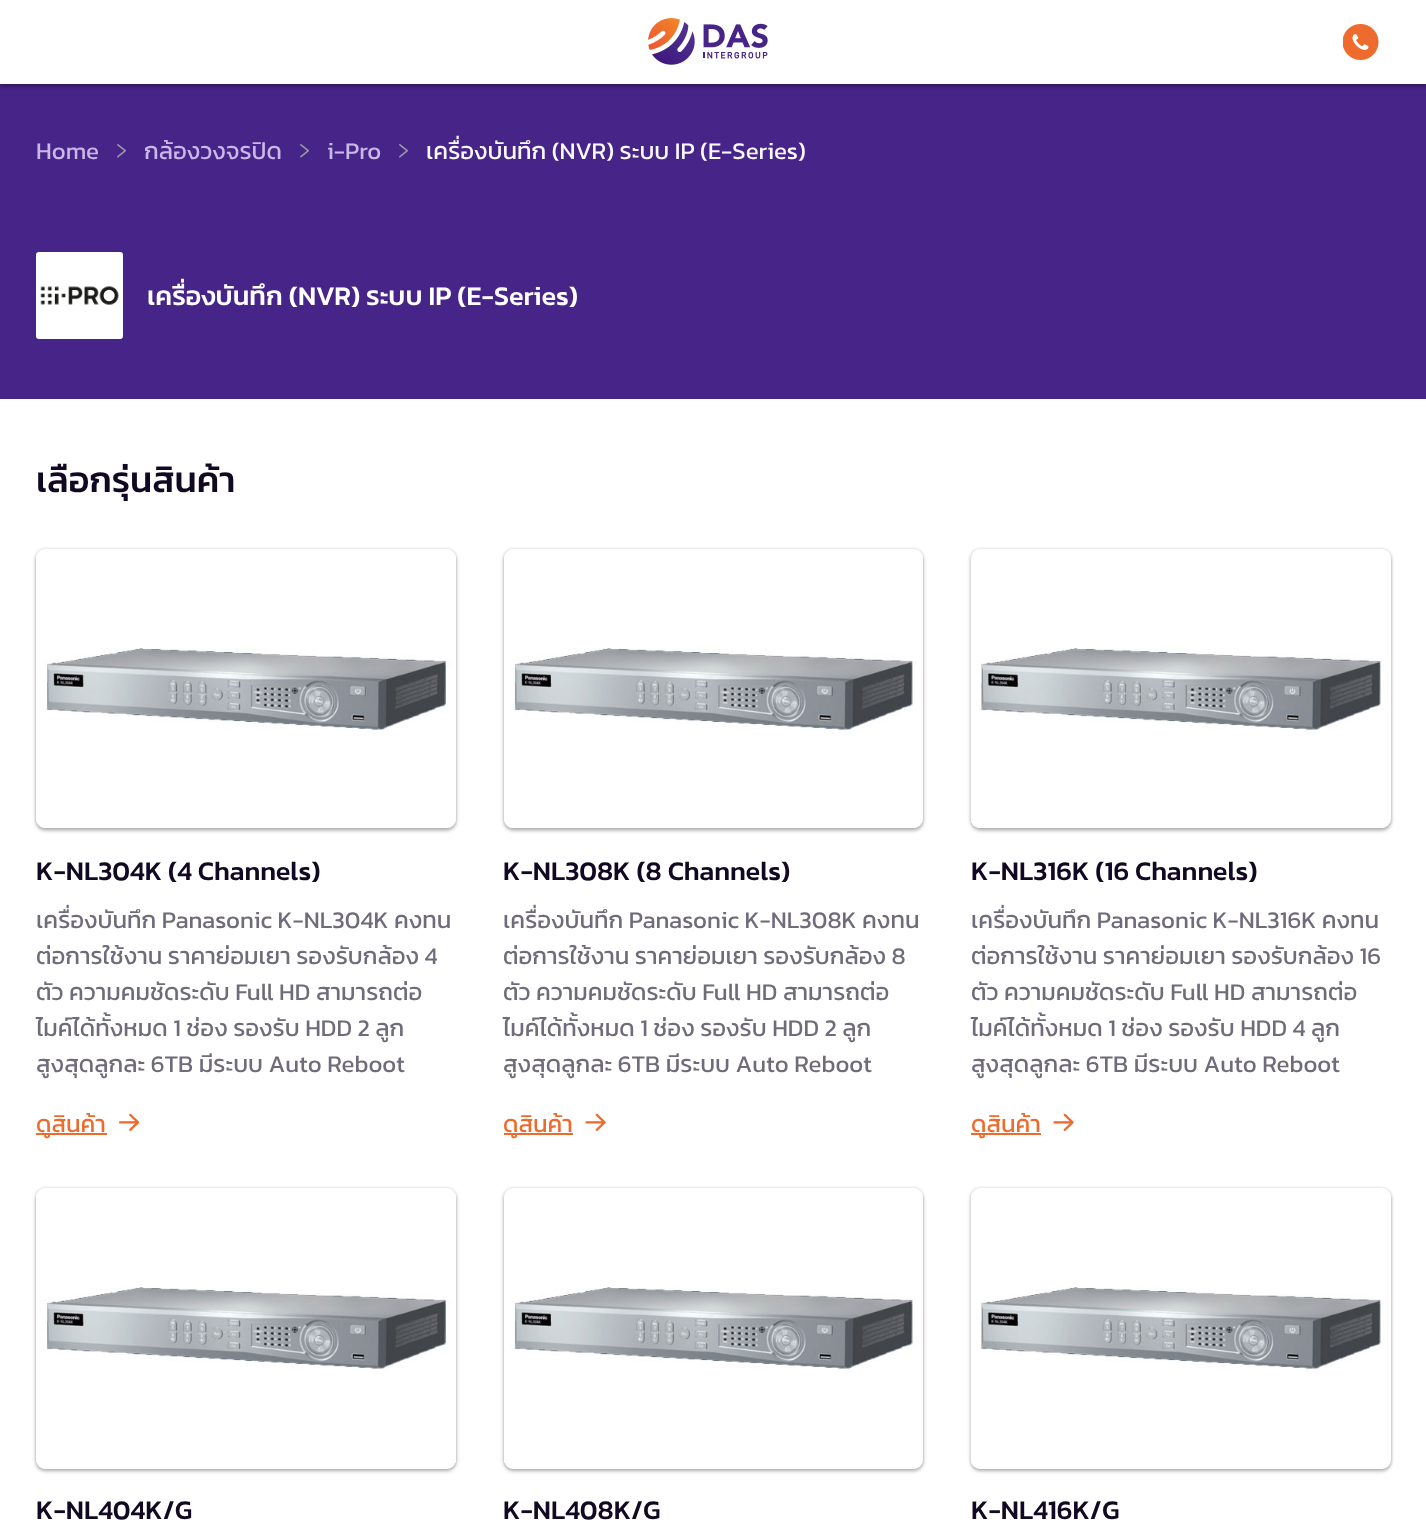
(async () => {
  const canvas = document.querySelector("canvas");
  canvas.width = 1426;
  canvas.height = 1524;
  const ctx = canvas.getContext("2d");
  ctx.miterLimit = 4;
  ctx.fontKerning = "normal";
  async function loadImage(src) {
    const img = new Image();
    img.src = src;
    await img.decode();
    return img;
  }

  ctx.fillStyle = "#ffffff";
  ctx.fillRect(0, 0, 1426, 1524);
  ctx.fillStyle = "#472487";
  ctx.fillRect(0, 84, 1426, 315);
  ctx.save();
  ctx.beginPath();
  ctx.rect(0, 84, 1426, 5);
  ctx.clip();
  ctx.fillStyle = "rgba(0, 0, 0, 0.2)";
  ctx.filter = "blur(2px)";
  ctx.beginPath();
  ctx.rect(0, 2, 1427, 84);
  ctx.fill();
  ctx.filter = "none";
  ctx.restore();
  ctx.save();
  ctx.beginPath();
  ctx.rect(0, 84, 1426, 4);
  ctx.clip();
  ctx.fillStyle = "rgba(0, 0, 0, 0.12)";
  ctx.filter = "blur(1.5px)";
  ctx.beginPath();
  ctx.rect(0, 3, 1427, 84);
  ctx.fill();
  ctx.filter = "none";
  ctx.restore();
  ctx.drawImage(await loadImage("img/1.png"), 648, 18, 120, 47);
  ctx.drawImage(await loadImage("img/2.png"), 1343, 24, 36, 36);
  ctx.drawImage(await loadImage("img/3.png"), 117, 144, 9, 14);
  ctx.drawImage(await loadImage("img/3.png"), 300, 144, 9, 14);
  ctx.drawImage(await loadImage("img/3.png"), 399, 144, 9, 14);
  ctx.drawImage(await loadImage("img/4.png"), 36, 252, 87, 87);
  ctx.fillStyle = "rgba(0, 0, 0, 0.2)";
  ctx.filter = "blur(2px)";
  ctx.beginPath();
  ctx.roundRect(36, 551, 420, 279, 9);
  ctx.fill();
  ctx.filter = "none";
  ctx.fillStyle = "rgba(0, 0, 0, 0.12)";
  ctx.filter = "blur(1.5px)";
  ctx.beginPath();
  ctx.roundRect(36, 552, 420, 279, 9);
  ctx.fill();
  ctx.filter = "none";
  ctx.fillStyle = "rgba(0, 0, 0, 0.14)";
  ctx.filter = "blur(1.5px)";
  ctx.beginPath();
  ctx.roundRect(36, 549, 420, 279, 9);
  ctx.fill();
  ctx.filter = "none";
  ctx.fillStyle = "#ffffff";
  ctx.beginPath();
  ctx.roundRect(36, 549, 420, 279, 9);
  ctx.fill();
  ctx.drawImage(await loadImage("img/5.png"), 36, 555, 420, 273);
  ctx.fillStyle = "#ee6b2d";
  ctx.fillRect(36, 1133, 71, 2);
  ctx.drawImage(await loadImage("img/6.png"), 119, 1113, 21, 18);
  ctx.fillStyle = "rgba(0, 0, 0, 0.2)";
  ctx.filter = "blur(2px)";
  ctx.beginPath();
  ctx.roundRect(504, 551, 419, 279, 9);
  ctx.fill();
  ctx.filter = "none";
  ctx.fillStyle = "rgba(0, 0, 0, 0.12)";
  ctx.filter = "blur(1.5px)";
  ctx.beginPath();
  ctx.roundRect(504, 552, 419, 279, 9);
  ctx.fill();
  ctx.filter = "none";
  ctx.fillStyle = "rgba(0, 0, 0, 0.14)";
  ctx.filter = "blur(1.5px)";
  ctx.beginPath();
  ctx.roundRect(504, 549, 419, 279, 9);
  ctx.fill();
  ctx.filter = "none";
  ctx.fillStyle = "#ffffff";
  ctx.beginPath();
  ctx.roundRect(504, 549, 419, 279, 9);
  ctx.fill();
  ctx.drawImage(await loadImage("img/7.png"), 504, 648, 413, 180);
  ctx.fillStyle = "#ee6b2d";
  ctx.fillRect(504, 1133, 69, 2);
  ctx.drawImage(await loadImage("img/8.png"), 585, 1113, 21, 18);
  ctx.fillStyle = "rgba(0, 0, 0, 0.2)";
  ctx.filter = "blur(2px)";
  ctx.beginPath();
  ctx.roundRect(971, 551, 420, 279, 9);
  ctx.fill();
  ctx.filter = "none";
  ctx.fillStyle = "rgba(0, 0, 0, 0.12)";
  ctx.filter = "blur(1.5px)";
  ctx.beginPath();
  ctx.roundRect(971, 552, 420, 279, 9);
  ctx.fill();
  ctx.filter = "none";
  ctx.fillStyle = "rgba(0, 0, 0, 0.14)";
  ctx.filter = "blur(1.5px)";
  ctx.beginPath();
  ctx.roundRect(971, 549, 420, 279, 9);
  ctx.fill();
  ctx.filter = "none";
  ctx.fillStyle = "#ffffff";
  ctx.beginPath();
  ctx.roundRect(971, 549, 420, 279, 9);
  ctx.fill();
  ctx.drawImage(await loadImage("img/9.png"), 970, 558, 415, 270);
  ctx.fillStyle = "#ee6b2d";
  ctx.fillRect(971, 1133, 70, 2);
  ctx.drawImage(await loadImage("img/8.png"), 1053, 1113, 21, 18);
  ctx.fillStyle = "rgba(0, 0, 0, 0.2)";
  ctx.filter = "blur(2px)";
  ctx.beginPath();
  ctx.roundRect(36, 1190, 420, 280, 9);
  ctx.fill();
  ctx.filter = "none";
  ctx.fillStyle = "rgba(0, 0, 0, 0.12)";
  ctx.filter = "blur(1.5px)";
  ctx.beginPath();
  ctx.roundRect(36, 1191, 420, 281, 9);
  ctx.fill();
  ctx.filter = "none";
  ctx.fillStyle = "rgba(0, 0, 0, 0.14)";
  ctx.filter = "blur(1.5px)";
  ctx.beginPath();
  ctx.roundRect(36, 1188, 420, 281, 9);
  ctx.fill();
  ctx.filter = "none";
  ctx.fillStyle = "#ffffff";
  ctx.beginPath();
  ctx.roundRect(36, 1188, 420, 281, 9);
  ctx.fill();
  ctx.drawImage(await loadImage("img/10.png"), 36, 1194, 420, 269);
  ctx.fillStyle = "rgba(0, 0, 0, 0.2)";
  ctx.filter = "blur(2px)";
  ctx.beginPath();
  ctx.roundRect(504, 1190, 419, 280, 9);
  ctx.fill();
  ctx.filter = "none";
  ctx.fillStyle = "rgba(0, 0, 0, 0.12)";
  ctx.filter = "blur(1.5px)";
  ctx.beginPath();
  ctx.roundRect(504, 1191, 419, 281, 9);
  ctx.fill();
  ctx.filter = "none";
  ctx.fillStyle = "rgba(0, 0, 0, 0.14)";
  ctx.filter = "blur(1.5px)";
  ctx.beginPath();
  ctx.roundRect(504, 1188, 419, 281, 9);
  ctx.fill();
  ctx.filter = "none";
  ctx.fillStyle = "#ffffff";
  ctx.beginPath();
  ctx.roundRect(504, 1188, 419, 281, 9);
  ctx.fill();
  ctx.drawImage(await loadImage("img/11.png"), 504, 1287, 412, 176);
  ctx.fillStyle = "rgba(0, 0, 0, 0.2)";
  ctx.filter = "blur(2px)";
  ctx.beginPath();
  ctx.roundRect(971, 1190, 420, 280, 9);
  ctx.fill();
  ctx.filter = "none";
  ctx.fillStyle = "rgba(0, 0, 0, 0.12)";
  ctx.filter = "blur(1.5px)";
  ctx.beginPath();
  ctx.roundRect(971, 1191, 420, 281, 9);
  ctx.fill();
  ctx.filter = "none";
  ctx.fillStyle = "rgba(0, 0, 0, 0.14)";
  ctx.filter = "blur(1.5px)";
  ctx.beginPath();
  ctx.roundRect(971, 1188, 420, 281, 9);
  ctx.fill();
  ctx.filter = "none";
  ctx.fillStyle = "#ffffff";
  ctx.beginPath();
  ctx.roundRect(971, 1188, 420, 281, 9);
  ctx.fill();
  ctx.drawImage(await loadImage("img/12.png"), 970, 1197, 414, 269);
  ctx.font = "24px Kanit";
  ctx.fillStyle = "#cbb8e8";
  for (const [text, x, y] of [
    ["Home", 36, 159],
    ["กล้องวงจรปิด", 144, 159],
    ["i-Pro", 327, 159],
  ]) {
    ctx.fillText(text, x, y);
  }
  ctx.fillStyle = "#faf9fc";
  ctx.fillText("เครื่องบันทึก (NVR) ระบบ IP (E-Series)", 426, 159);
  ctx.font = "500 27px Kanit";
  ctx.fillStyle = "#ffffff";
  ctx.fillText("เครื่องบันทึก (NVR) ระบบ IP (E-Series)", 147, 305);
  ctx.font = "500 36px Kanit";
  ctx.fillStyle = "#110821";
  ctx.fillText("เลือกรุ่นสินค้า", 36, 492);
  ctx.font = "500 27px Kanit";
  ctx.fillText("K-NL304K (4 Channels)", 36, 880);
  ctx.font = "24px Kanit";
  ctx.fillStyle = "#706b7a";
  for (const [text, x, y] of [
    ["เครื่องบันทึก Panasonic K-NL304K คงทน", 36, 928],
    ["ต่อการใช้งาน ราคาย่อมเยา รองรับกล้อง 4", 36, 964],
    ["ตัว ความคมชัดระดับ Full HD สามารถต่อ", 36, 1000],
    ["ไมค์ได้ทั้งหมด 1 ช่อง รองรับ HDD 2 ลูก", 36, 1036],
    ["สูงสุดลูกละ 6TB มีระบบ Auto Reboot", 36, 1072],
  ]) {
    ctx.fillText(text, x, y);
  }
  ctx.fillStyle = "#ee6b2d";
  ctx.fillText("ดูสินค้า", 36, 1132);
  ctx.font = "500 27px Kanit";
  ctx.fillStyle = "#110821";
  ctx.fillText("K-NL308K (8 Channels)", 503, 880);
  ctx.font = "24px Kanit";
  ctx.fillStyle = "#706b7a";
  for (const [text, x, y] of [
    ["เครื่องบันทึก Panasonic K-NL308K คงทน", 503, 928],
    ["ต่อการใช้งาน ราคาย่อมเยา รองรับกล้อง 8", 503, 964],
    ["ตัว ความคมชัดระดับ Full HD สามารถต่อ", 503, 1000],
    ["ไมค์ได้ทั้งหมด 1 ช่อง รองรับ HDD 2 ลูก", 503, 1036],
    ["สูงสุดลูกละ 6TB มีระบบ Auto Reboot", 503, 1072],
  ]) {
    ctx.fillText(text, x, y);
  }
  ctx.fillStyle = "#ee6b2d";
  ctx.fillText("ดูสินค้า", 503, 1132);
  ctx.font = "500 27px Kanit";
  ctx.fillStyle = "#110821";
  ctx.fillText("K-NL316K (16 Channels)", 971, 880);
  ctx.font = "24px Kanit";
  ctx.fillStyle = "#706b7a";
  for (const [text, x, y] of [
    ["เครื่องบันทึก Panasonic K-NL316K คงทน", 971, 928],
    ["ต่อการใช้งาน ราคาย่อมเยา รองรับกล้อง 16", 971, 964],
    ["ตัว ความคมชัดระดับ Full HD สามารถต่อ", 971, 1000],
    ["ไมค์ได้ทั้งหมด 1 ช่อง รองรับ HDD 4 ลูก", 971, 1036],
    ["สูงสุดลูกละ 6TB มีระบบ Auto Reboot", 971, 1072],
  ]) {
    ctx.fillText(text, x, y);
  }
  ctx.fillStyle = "#ee6b2d";
  ctx.fillText("ดูสินค้า", 971, 1132);
  ctx.font = "500 27px Kanit";
  ctx.fillStyle = "#110821";
  for (const [text, x, y] of [
    ["K-NL404K/G", 36, 1519],
    ["K-NL408K/G", 503, 1519],
    ["K-NL416K/G", 971, 1519],
  ]) {
    ctx.fillText(text, x, y);
  }
})();
